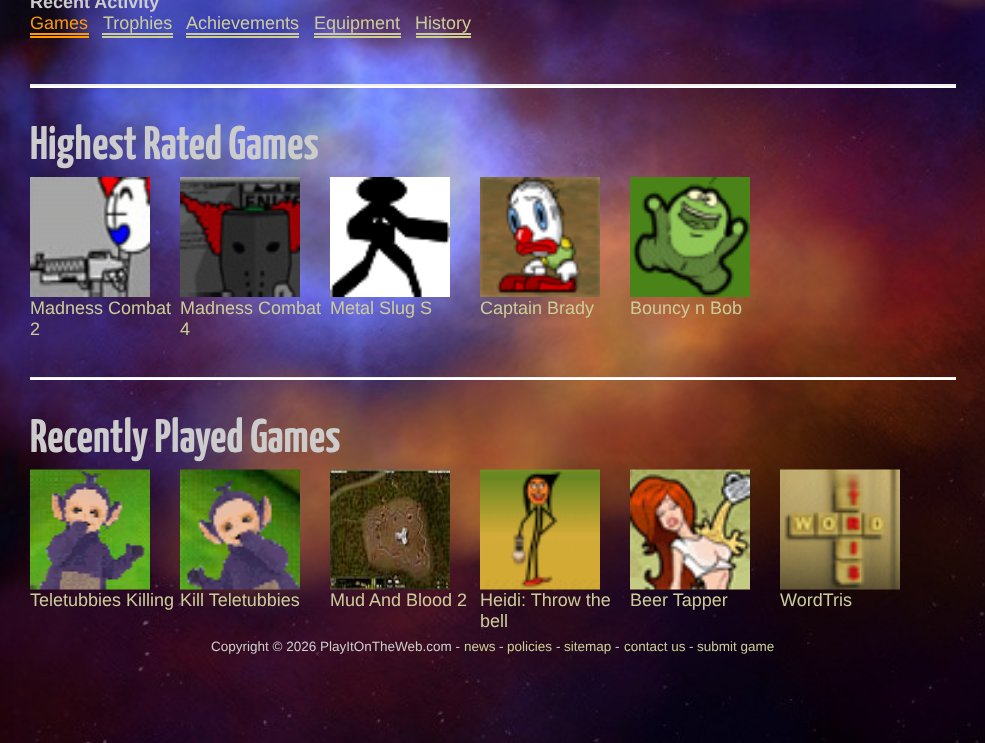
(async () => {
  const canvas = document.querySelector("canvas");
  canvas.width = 985;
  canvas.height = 743;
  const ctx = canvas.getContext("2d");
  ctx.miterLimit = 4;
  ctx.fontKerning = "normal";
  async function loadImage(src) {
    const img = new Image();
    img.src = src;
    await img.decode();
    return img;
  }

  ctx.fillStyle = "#ffffff";
  ctx.fillRect(0, 0, 985, 743);
  ctx.drawImage(await loadImage("img/1.png"), 0, 0, 985, 743);
  for (const [x, y, w, h, color] of [
    [30, 33, 59, 2, "#ff9900"],
    [30, 36, 59, 2, "#ff9900"],
    [102, 33, 71, 2, "#cccc99"],
    [102, 36, 71, 2, "#cccc99"],
    [186, 33, 113, 2, "#cccc99"],
    [186, 36, 113, 2, "#cccc99"],
    [314, 33, 87, 2, "#cccc99"],
    [314, 36, 87, 2, "#cccc99"],
    [416, 33, 55, 2, "#cccc99"],
    [416, 36, 55, 2, "#cccc99"],
    [30, 84, 926, 2, "#eeeeee"],
    [30, 86, 926, 2, "#ffffff"],
  ]) {
    ctx.fillStyle = color;
    ctx.fillRect(x, y, w, h);
  }
  ctx.drawImage(await loadImage("img/2.png"), 30, 177, 120, 120);
  ctx.drawImage(await loadImage("img/3.png"), 180, 177, 120, 120);
  ctx.drawImage(await loadImage("img/4.png"), 330, 177, 120, 120);
  ctx.drawImage(await loadImage("img/5.png"), 480, 177, 120, 120);
  ctx.drawImage(await loadImage("img/6.png"), 630, 177, 120, 120);
  ctx.fillStyle = "#eeeeee";
  ctx.fillRect(30, 377, 926, 1);
  ctx.fillStyle = "#ffffff";
  ctx.fillRect(30, 378, 926, 2);
  ctx.drawImage(await loadImage("img/7.png"), 30, 469, 120, 121);
  ctx.drawImage(await loadImage("img/8.png"), 180, 469, 120, 121);
  ctx.drawImage(await loadImage("img/9.png"), 330, 469, 120, 121);
  ctx.drawImage(await loadImage("img/10.png"), 480, 469, 120, 121);
  ctx.drawImage(await loadImage("img/11.png"), 630, 469, 120, 121);
  ctx.drawImage(await loadImage("img/12.png"), 780, 469, 120, 121);
  ctx.font = "bold 18px Liberation Sans";
  ctx.fillStyle = "#cccccc";
  ctx.fillText("Recent Activity", 30, 8);
  ctx.font = "18px Liberation Sans";
  ctx.fillStyle = "#ff9900";
  ctx.fillText("Games", 30, 29);
  ctx.fillStyle = "#cccc99";
  for (const [text, x, y] of [
    ["Trophies", 103, 29],
    ["Achievements", 186, 29],
    ["Equipment", 314, 29],
    ["History", 415, 29],
  ]) {
    ctx.fillText(text, x, y);
  }
  ctx.font = "bold 47.25px Yanone Kaffeesatz";
  ctx.fillStyle = "#cccccc";
  ctx.fillText("Highest Rated Games", 30, 159);
  ctx.font = "18px Liberation Sans";
  ctx.fillStyle = "#cccc99";
  for (const [text, x, y] of [
    ["Madness Combat", 30, 314],
    ["2", 30, 335],
    ["Madness Combat", 180, 314],
    ["4", 180, 335],
    ["Metal Slug S", 330, 314],
    ["Captain Brady", 480, 314],
    ["Bouncy n Bob", 630, 314],
  ]) {
    ctx.fillText(text, x, y);
  }
  ctx.font = "bold 47.25px Yanone Kaffeesatz";
  ctx.fillStyle = "#cccccc";
  ctx.fillText("Recently Played Games", 30, 452);
  ctx.font = "18px Liberation Sans";
  ctx.fillStyle = "#cccc99";
  for (const [text, x, y] of [
    ["Teletubbies Killing", 30, 606],
    ["Kill Teletubbies", 180, 606],
    ["Mud And Blood 2", 330, 606],
    ["Heidi: Throw the", 480, 606],
    ["bell", 480, 627],
    ["Beer Tapper", 630, 606],
    ["WordTris", 780, 606],
  ]) {
    ctx.fillText(text, x, y);
  }
  ctx.font = "13.5px Liberation Sans";
  ctx.fillStyle = "#cccccc";
  ctx.fillText("Copyright © 2026 PlayItOnTheWeb.com -", 211, 651);
  ctx.fillStyle = "#cccc99";
  ctx.fillText("news", 464, 651);
  ctx.fillStyle = "#cccccc";
  ctx.fillText("-", 499, 651);
  ctx.fillStyle = "#cccc99";
  ctx.fillText("policies", 507, 651);
  ctx.fillStyle = "#cccccc";
  ctx.fillText("-", 556, 651);
  ctx.fillStyle = "#cccc99";
  ctx.fillText("sitemap", 564, 651);
  ctx.fillStyle = "#cccccc";
  ctx.fillText("-", 615, 651);
  ctx.fillStyle = "#cccc99";
  ctx.fillText("contact us", 624, 651);
  ctx.fillStyle = "#cccccc";
  ctx.fillText("-", 689, 651);
  ctx.fillStyle = "#cccc99";
  ctx.fillText("submit game", 697, 651);
})();
